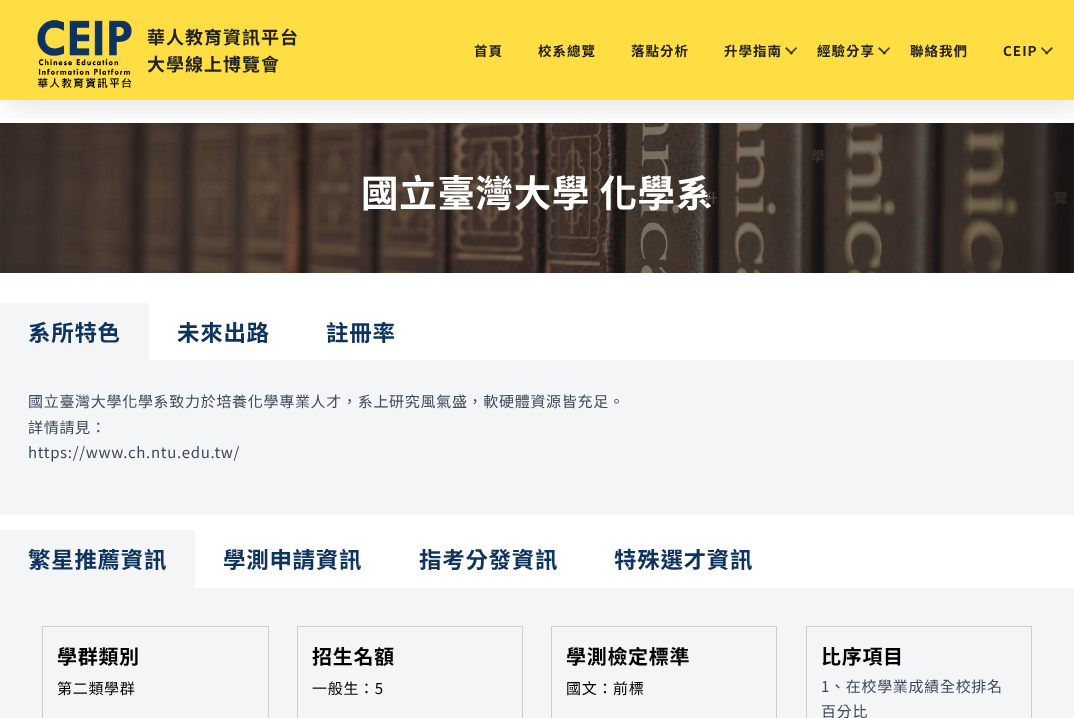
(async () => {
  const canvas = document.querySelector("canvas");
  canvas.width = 1074;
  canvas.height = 718;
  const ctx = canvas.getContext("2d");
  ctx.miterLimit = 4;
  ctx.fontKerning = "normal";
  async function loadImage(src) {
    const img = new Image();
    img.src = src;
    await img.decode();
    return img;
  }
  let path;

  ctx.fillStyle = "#ffffff";
  ctx.fillRect(0, 0, 1074, 718);
  ctx.fillStyle = "#ffde44";
  ctx.fillRect(0, 0, 1074, 100);
  ctx.drawImage(await loadImage("img/2.png"), 0, 123, 1074, 150);
  ctx.save();
  ctx.beginPath();
  ctx.rect(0, 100, 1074, 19);
  ctx.clip();
  ctx.fillStyle = "rgba(0, 0, 0, 0.12)";
  ctx.filter = "blur(15px)";
  ctx.beginPath();
  ctx.rect(6, 5, 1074, 100);
  ctx.fill();
  ctx.filter = "none";
  ctx.restore();
  ctx.drawImage(await loadImage("img/1.png"), 37, 20, 95, 68);
  ctx.fillStyle = "#4e4829";
  path = new Path2D("M797 48.5L791 54.5L789.5 53.5L796 47Z");
  ctx.fill(path);
  ctx.fillStyle = "rgba(34, 34, 34, 0.8)";
  path = new Path2D("M791.5 54.5L785 48.5L786.5 47L793 53.5Z");
  ctx.fill(path);
  ctx.fillStyle = "#4e4829";
  path = new Path2D("M890 48.5L884 54.5L882.5 53.5L889 47Z");
  ctx.fill(path);
  ctx.fillStyle = "rgba(34, 34, 34, 0.8)";
  path = new Path2D("M884.5 54.5L878 48.5L879.5 47L886 53.5Z");
  ctx.fill(path);
  ctx.fillStyle = "#4e4829";
  path = new Path2D("M1053 48.5L1046.5 54.5L1045 53.5L1051.5 47Z");
  ctx.fill(path);
  ctx.fillStyle = "rgba(34, 34, 34, 0.8)";
  path = new Path2D("M1047 54.5L1041 48.5L1042 47L1048.5 53.5Z");
  ctx.fill(path);
  for (const [x, y, w, h, color] of [
    [0, 303, 149, 57, "#f4f5f7"],
    [0, 360, 1074, 155, "#f4f5f7"],
    [0, 530, 195, 58, "#f4f5f7"],
    [0, 588, 1074, 130, "#f4f5f7"],
  ]) {
    ctx.fillStyle = color;
    ctx.fillRect(x, y, w, h);
  }
  ctx.strokeStyle = "#cccccc";
  ctx.strokeRect(42.5, 626.5, 226, 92);
  ctx.strokeRect(297.5, 626.5, 225, 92);
  ctx.strokeRect(551.5, 626.5, 225, 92);
  ctx.strokeRect(806.5, 626.5, 225, 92);
  ctx.letterSpacing = "1px";
  ctx.font = "bold 18px Noto Sans TC";
  ctx.fillStyle = "#222222";
  ctx.fillText("華人教育資訊平台", 147, 44);
  ctx.fillText("大學線上博覽會", 147, 71);
  ctx.font = "bold 13.5px Noto Sans TC";
  for (const [text, x, y] of [
    ["首頁", 474, 56],
    ["校系總覽", 538, 56],
    ["落點分析", 631, 56],
    ["升學指南", 724, 56],
    ["經驗分享", 817, 56],
  ]) {
    ctx.fillText(text, x, y);
  }
  ctx.letterSpacing = "0.7px";
  ctx.fillStyle = "#3e342c";
  ctx.fillText("學", 811, 161);
  ctx.letterSpacing = "1px";
  ctx.fillStyle = "#222222";
  ctx.fillText("聯絡我們", 910, 56);
  ctx.fillText("CEIP", 1003, 56);
  ctx.letterSpacing = "0.7px";
  ctx.fillStyle = "#332c26";
  ctx.fillText("覽", 1054, 203);
  ctx.font = "bold 37.5px Noto Sans TC";
  ctx.fillStyle = "#ffffff";
  ctx.fillText("國立臺灣大學 化學系", 361, 207);
  ctx.font = "bold 13.5px Noto Sans TC";
  ctx.fillStyle = "#4c4139";
  ctx.fillText("升", 704, 203);
  ctx.font = "bold 22.5px Noto Sans TC";
  ctx.fillStyle = "#0e335f";
  for (const [text, x, y] of [
    ["系所特色", 28, 341],
    ["未來出路", 177, 341],
    ["註冊率", 326, 341],
  ]) {
    ctx.fillText(text, x, y);
  }
  ctx.font = "15px Noto Sans TC";
  ctx.fillStyle = "#3f485d";
  for (const [text, x, y] of [
    ["國立臺灣大學化學系致力於培養化學專業人才，系上研究風氣盛，軟硬體資源皆充足。", 28, 407],
    ["詳情請見：", 28, 433],
    ["https://www.ch.ntu.edu.tw/", 28, 458],
  ]) {
    ctx.fillText(text, x, y);
  }
  ctx.font = "bold 22.5px Noto Sans TC";
  ctx.fillStyle = "#0e335f";
  for (const [text, x, y] of [
    ["繁星推薦資訊", 28, 568],
    ["學測申請資訊", 223, 568],
    ["指考分發資訊", 419, 568],
    ["特殊選才資訊", 614, 568],
  ]) {
    ctx.fillText(text, x, y);
  }
  ctx.font = "bold 20px Noto Sans TC";
  ctx.fillStyle = "#000000";
  ctx.fillText("學群類別", 57, 664);
  ctx.font = "15px Noto Sans TC";
  ctx.fillText("第二類學群", 57, 694);
  ctx.font = "bold 20px Noto Sans TC";
  ctx.fillText("招生名額", 312, 664);
  ctx.font = "15px Noto Sans TC";
  ctx.fillText("一般生：5", 312, 694);
  ctx.font = "bold 20px Noto Sans TC";
  ctx.fillText("學測檢定標準", 566, 664);
  ctx.font = "15px Noto Sans TC";
  ctx.fillText("國文：前標", 566, 694);
  ctx.font = "bold 20px Noto Sans TC";
  ctx.fillText("比序項目", 821, 664);
  ctx.font = "15px Noto Sans TC";
  ctx.fillStyle = "#3f485d";
  ctx.fillText("1、在校學業成績全校排名", 821, 692);
  ctx.fillText("百分比", 821, 717);
})();
